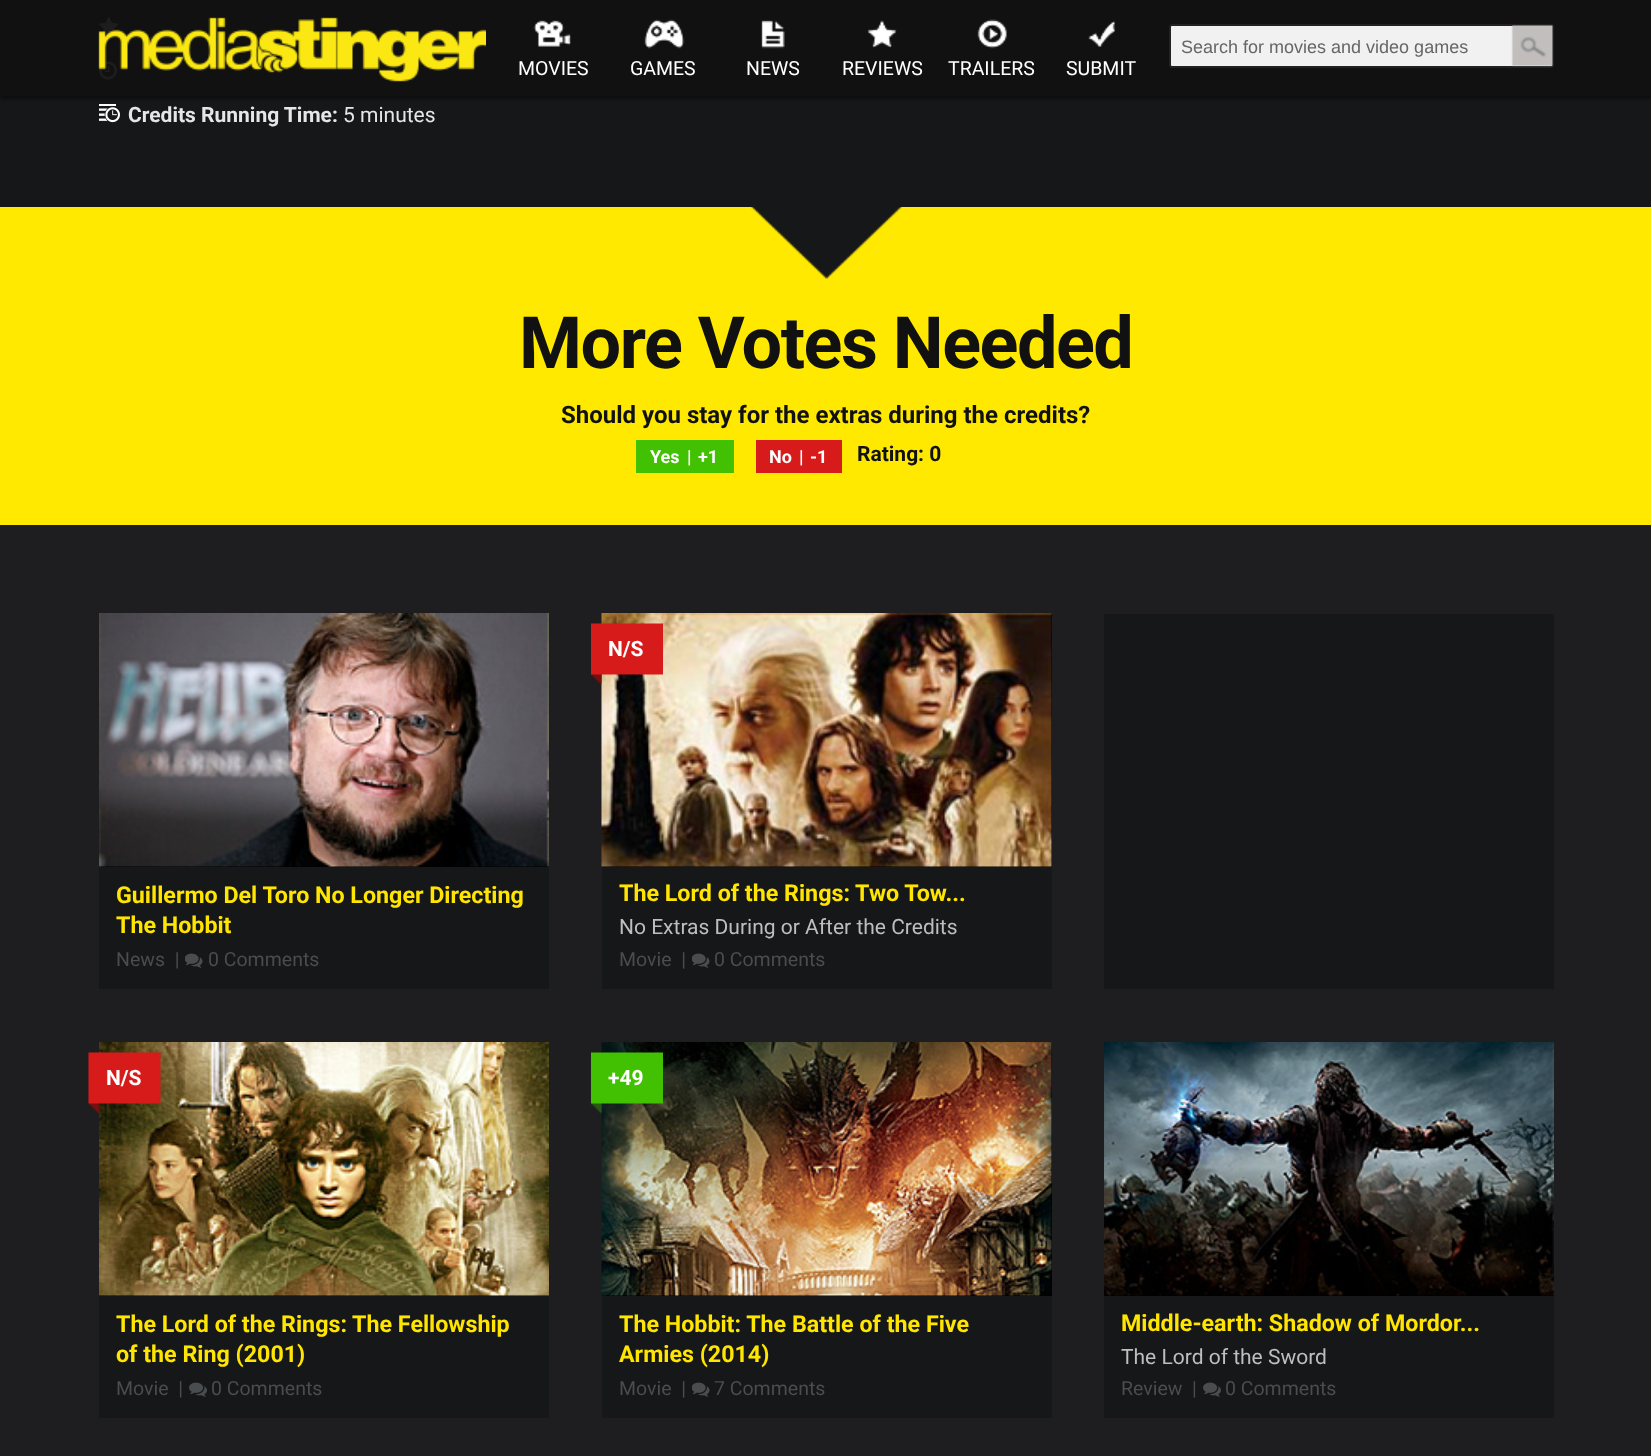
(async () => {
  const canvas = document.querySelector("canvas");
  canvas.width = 1651;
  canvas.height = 1456;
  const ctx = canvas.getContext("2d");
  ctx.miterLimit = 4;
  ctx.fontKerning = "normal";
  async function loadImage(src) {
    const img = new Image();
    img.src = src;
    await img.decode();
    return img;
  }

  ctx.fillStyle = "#1e1e20";
  ctx.fillRect(0, 0, 1651, 1456);
  ctx.fillStyle = "#161718";
  ctx.fillRect(0, 96, 1651, 111);
  ctx.fillStyle = "#111111";
  ctx.fillRect(0, 0, 1651, 96);
  ctx.drawImage(await loadImage("img/9.png"), 99, 17, 20, 19);
  ctx.drawImage(await loadImage("img/10.png"), 99, 61, 18, 19);
  ctx.drawImage(await loadImage("img/11.png"), 99, 104, 21, 19);
  ctx.save();
  ctx.beginPath();
  ctx.rect(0, 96, 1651, 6);
  ctx.clip();
  ctx.fillStyle = "rgba(0, 0, 0, 0.55)";
  ctx.filter = "blur(2px)";
  ctx.beginPath();
  ctx.rect(0, 2, 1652, 96);
  ctx.fill();
  ctx.filter = "none";
  ctx.restore();
  ctx.drawImage(await loadImage("img/1.png"), 98, 17, 388, 65);
  ctx.fillStyle = "#f1f1f1";
  ctx.beginPath();
  ctx.roundRect(1170, 25, 383, 42, 2);
  ctx.fill();
  ctx.strokeStyle = "#222222";
  ctx.lineWidth = 2;
  ctx.stroke();
  ctx.drawImage(await loadImage("img/2.png"), 1511, 25, 42, 42);
  ctx.drawImage(await loadImage("img/3.png"), 533, 20, 38, 27);
  ctx.drawImage(await loadImage("img/4.png"), 644, 19, 41, 30);
  ctx.drawImage(await loadImage("img/5.png"), 761, 20, 24, 29);
  ctx.drawImage(await loadImage("img/6.png"), 867, 20, 30, 28);
  ctx.drawImage(await loadImage("img/7.png"), 977, 19, 30, 30);
  ctx.drawImage(await loadImage("img/8.png"), 1088, 20, 27, 27);
  ctx.fillStyle = "#ffe900";
  ctx.fillRect(0, 207, 1651, 318);
  ctx.drawImage(await loadImage("img/12.png"), 751, 207, 151, 72);
  for (const [x, y, w, h, color] of [
    [636, 440, 98, 33, "#41c102"],
    [756, 440, 86, 33, "#d71a1a"],
    [99, 867, 450, 122, "#161718"],
    [99, 866, 450, 1, "#000000"],
  ]) {
    ctx.fillStyle = color;
    ctx.fillRect(x, y, w, h);
  }
  ctx.drawImage(await loadImage("img/13.png"), 99, 613, 450, 254);
  ctx.drawImage(await loadImage("img/14.png"), 185, 953, 18, 15);
  ctx.fillStyle = "#161718";
  ctx.fillRect(602, 867, 450, 122);
  ctx.fillStyle = "#000000";
  ctx.fillRect(602, 614, 450, 253);
  ctx.drawImage(await loadImage("img/15.png"), 601, 613, 451, 254);
  ctx.drawImage(await loadImage("img/16.png"), 591, 623, 72, 63);
  ctx.drawImage(await loadImage("img/14.png"), 692, 953, 18, 15);
  for (const [x, y, w, h, color] of [
    [1104, 614, 450, 375, "#161718"],
    [99, 1296, 450, 122, "#161718"],
    [99, 1295, 450, 1, "#000000"],
  ]) {
    ctx.fillStyle = color;
    ctx.fillRect(x, y, w, h);
  }
  ctx.drawImage(await loadImage("img/17.png"), 99, 1042, 450, 254);
  ctx.drawImage(await loadImage("img/18.png"), 88, 1052, 73, 63);
  ctx.drawImage(await loadImage("img/19.png"), 189, 1382, 18, 15);
  ctx.fillStyle = "#161718";
  ctx.fillRect(602, 1296, 450, 122);
  ctx.fillStyle = "#000000";
  ctx.fillRect(602, 1043, 450, 253);
  ctx.drawImage(await loadImage("img/20.png"), 601, 1042, 451, 254);
  ctx.drawImage(await loadImage("img/21.png"), 591, 1052, 72, 62);
  ctx.drawImage(await loadImage("img/14.png"), 692, 1382, 18, 15);
  ctx.fillStyle = "#161718";
  ctx.fillRect(1104, 1296, 450, 122);
  ctx.fillStyle = "#000000";
  ctx.fillRect(1104, 1295, 450, 1);
  ctx.drawImage(await loadImage("img/22.png"), 1104, 1042, 450, 254);
  ctx.drawImage(await loadImage("img/19.png"), 1203, 1382, 18, 15);
  ctx.font = "18px Liberation Sans";
  ctx.fillStyle = "#666666";
  ctx.fillText("Search for movies and video games", 1181, 53);
  ctx.font = "19.5px Roboto";
  ctx.fillStyle = "#ffffff";
  for (const [text, x, y] of [
    ["MOVIES", 518, 75],
    ["GAMES", 630, 75],
    ["NEWS", 746, 75],
    ["REVIEWS", 842, 75],
    ["TRAILERS", 948, 75],
    ["SUBMIT", 1066, 75],
  ]) {
    ctx.fillText(text, x, y);
  }
  ctx.font = "bold 21px Roboto";
  ctx.fillStyle = "#e4e6e7";
  ctx.fillText("Credits Running Time:", 128, 122);
  ctx.font = "21px Roboto";
  ctx.fillText("5 minutes", 343, 122);
  ctx.letterSpacing = "-1.5px";
  ctx.font = "bold 72px Roboto";
  ctx.fillStyle = "#111111";
  ctx.fillText("More Votes Needed", 519, 368);
  ctx.letterSpacing = "0px";
  ctx.font = "bold 24px Roboto";
  ctx.fillText("Should you stay for the extras during the credits?", 561, 423);
  ctx.font = "bold 18px Roboto";
  ctx.fillStyle = "#ffffff";
  for (const [text, x, y] of [
    ["Yes", 650, 463],
    ["|", 687, 463],
    ["+1", 698, 463],
    ["No", 769, 463],
    ["|", 799, 463],
    ["-1", 810, 463],
  ]) {
    ctx.fillText(text, x, y);
  }
  ctx.font = "bold 21px Roboto";
  ctx.fillStyle = "#111111";
  ctx.fillText("Rating: 0", 857, 461);
  ctx.font = "bold 23.25px Roboto";
  ctx.fillStyle = "#ffe500";
  ctx.fillText("Guillermo Del Toro No Longer Directing", 116, 903);
  ctx.fillText("The Hobbit", 116, 933);
  ctx.font = "19.5px Roboto";
  ctx.fillStyle = "#494d50";
  ctx.fillText("News  |", 116, 966);
  ctx.fillText("0 Comments", 208, 966);
  ctx.font = "bold 21px Roboto";
  ctx.fillStyle = "#ffffff";
  ctx.fillText("N/S", 608, 656);
  ctx.font = "bold 23.25px Roboto";
  ctx.fillStyle = "#ffe500";
  ctx.fillText("The Lord of the Rings: Two Tow...", 619, 901);
  ctx.font = "21px Roboto";
  ctx.fillStyle = "#bcbfc2";
  ctx.fillText("No Extras During or After the Credits", 619, 934);
  ctx.font = "19.5px Roboto";
  ctx.fillStyle = "#494d50";
  ctx.fillText("Movie  |", 619, 966);
  ctx.fillText("0 Comments", 714, 966);
  ctx.font = "bold 21px Roboto";
  ctx.fillStyle = "#ffffff";
  ctx.fillText("N/S", 106, 1085);
  ctx.font = "bold 23.25px Roboto";
  ctx.fillStyle = "#ffe500";
  ctx.fillText("The Lord of the Rings: The Fellowship", 116, 1332);
  ctx.fillText("of the Ring (2001)", 116, 1362);
  ctx.font = "19.5px Roboto";
  ctx.fillStyle = "#494d50";
  ctx.fillText("Movie  |", 116, 1395);
  ctx.fillText("0 Comments", 211, 1395);
  ctx.font = "bold 21px Roboto";
  ctx.fillStyle = "#ffffff";
  ctx.fillText("+49", 608, 1085);
  ctx.font = "bold 23.25px Roboto";
  ctx.fillStyle = "#ffe500";
  ctx.fillText("The Hobbit: The Battle of the Five", 619, 1332);
  ctx.fillText("Armies (2014)", 619, 1362);
  ctx.font = "19.5px Roboto";
  ctx.fillStyle = "#494d50";
  ctx.fillText("Movie  |", 619, 1395);
  ctx.fillText("7 Comments", 714, 1395);
  ctx.font = "bold 23.25px Roboto";
  ctx.fillStyle = "#ffe500";
  ctx.fillText("Middle-earth: Shadow of Mordor...", 1121, 1331);
  ctx.font = "21px Roboto";
  ctx.fillStyle = "#bcbfc2";
  ctx.fillText("The Lord of the Sword", 1121, 1364);
  ctx.font = "19.5px Roboto";
  ctx.fillStyle = "#494d50";
  ctx.fillText("Review  |", 1121, 1395);
  ctx.fillText("0 Comments", 1225, 1395);
})();
